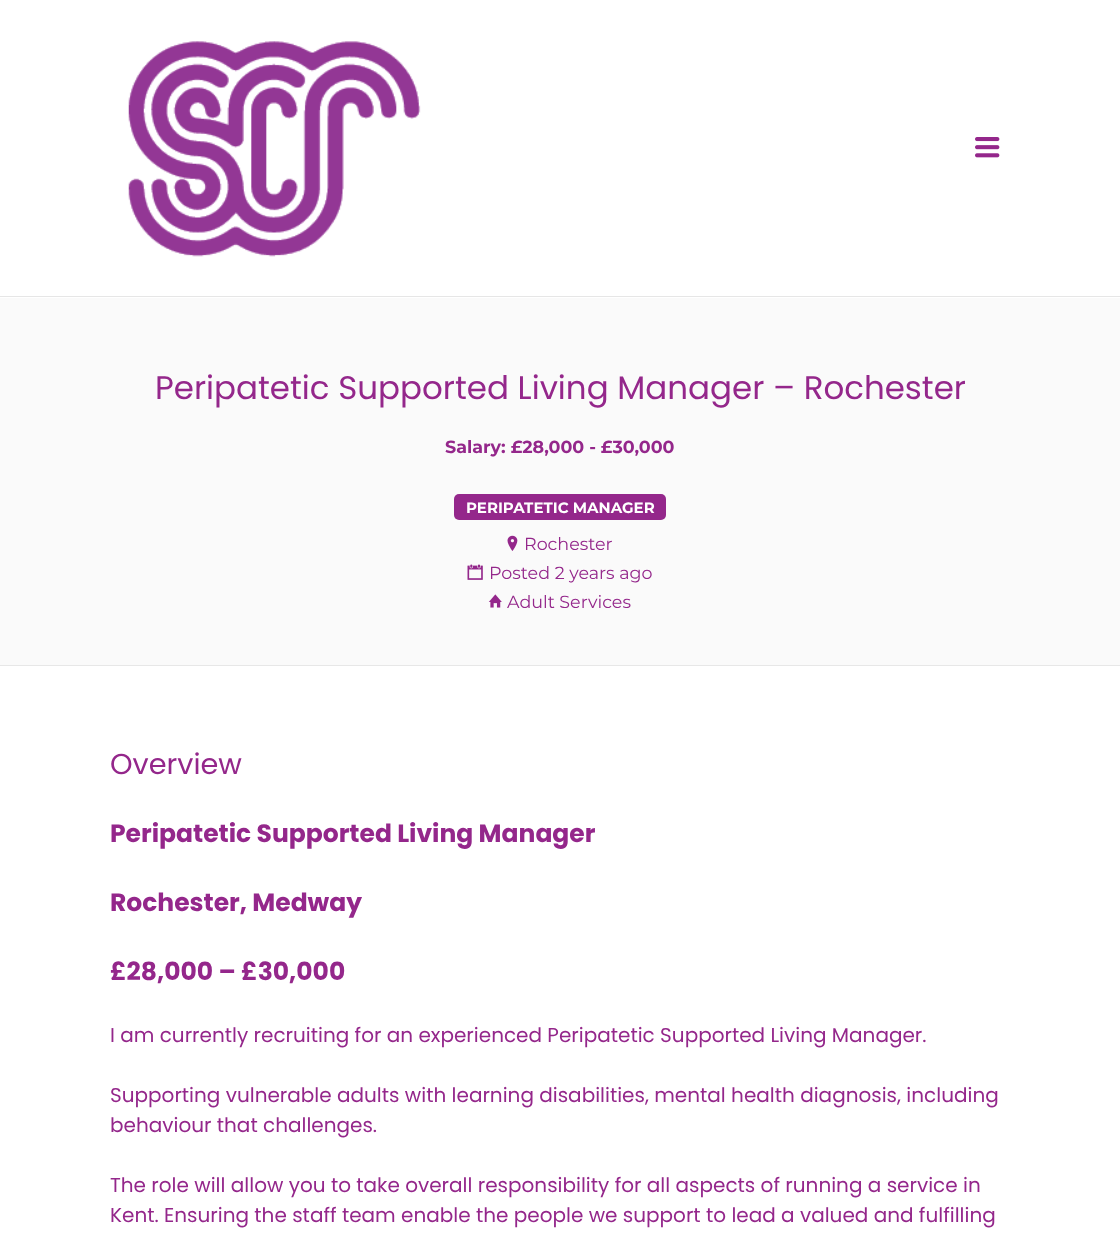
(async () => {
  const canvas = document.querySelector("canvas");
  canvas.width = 1120;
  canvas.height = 1242;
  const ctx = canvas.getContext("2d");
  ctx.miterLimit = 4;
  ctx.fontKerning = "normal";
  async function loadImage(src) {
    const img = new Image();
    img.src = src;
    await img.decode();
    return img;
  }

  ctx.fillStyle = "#ffffff";
  ctx.fillRect(0, 0, 1120, 1242);
  ctx.fillStyle = "#e6e6e6";
  ctx.fillRect(0, 296, 1120, 1);
  ctx.drawImage(await loadImage("img/1.png"), 128, 41, 293, 216);
  ctx.drawImage(await loadImage("img/2.png"), 975, 137, 25, 21);
  ctx.fillStyle = "#fafafa";
  ctx.fillRect(0, 298, 1120, 367);
  ctx.fillStyle = "#e7e7e7";
  ctx.fillRect(0, 665, 1120, 1);
  ctx.fillStyle = "#94278b";
  ctx.beginPath();
  ctx.roundRect(454, 494, 212, 26, 5);
  ctx.fill();
  ctx.drawImage(await loadImage("img/3.png"), 507, 535, 11, 16);
  ctx.drawImage(await loadImage("img/4.png"), 467, 564, 16, 16);
  ctx.drawImage(await loadImage("img/5.png"), 488, 594, 14, 14);
  ctx.font = "32.5px Poppins";
  ctx.fillText("Peripatetic Supported Living Manager – Rochester", 155, 399);
  ctx.font = "bold 17.5px Montserrat";
  ctx.fillText("Salary: £28,000 - £30,000", 445, 453);
  ctx.font = "bold 15px Montserrat";
  ctx.fillStyle = "#ffffff";
  ctx.fillText("PERIPATETIC MANAGER", 466, 513);
  ctx.font = "17.5px Montserrat";
  ctx.fillStyle = "#94278b";
  for (const [text, x, y] of [
    ["Rochester", 524, 550],
    ["Posted 2 years ago", 489, 579],
    ["Adult Services", 507, 608],
  ]) {
    ctx.fillText(text, x, y);
  }
  ctx.font = "28.75px Poppins";
  ctx.fillText("Overview", 110, 774);
  ctx.font = "bold 25px Poppins";
  for (const [text, x, y] of [
    ["Peripatetic Supported Living Manager", 110, 842],
    ["Rochester, Medway", 110, 911],
    ["£28,000 – £30,000", 110, 980],
  ]) {
    ctx.fillText(text, x, y);
  }
  ctx.font = "20px Poppins";
  for (const [text, x, y] of [
    ["I am currently recruiting for an experienced Peripatetic Supported Living Manager.", 110, 1042],
    ["Supporting vulnerable adults with learning disabilities, mental health diagnosis, including", 110, 1102],
    ["behaviour that challenges.", 110, 1132],
    ["The role will allow you to take overall responsibility for all aspects of running a service in", 110, 1192],
    ["Kent. Ensuring the staff team enable the people we support to lead a valued and fulfilling", 110, 1222],
  ]) {
    ctx.fillText(text, x, y);
  }
})();
